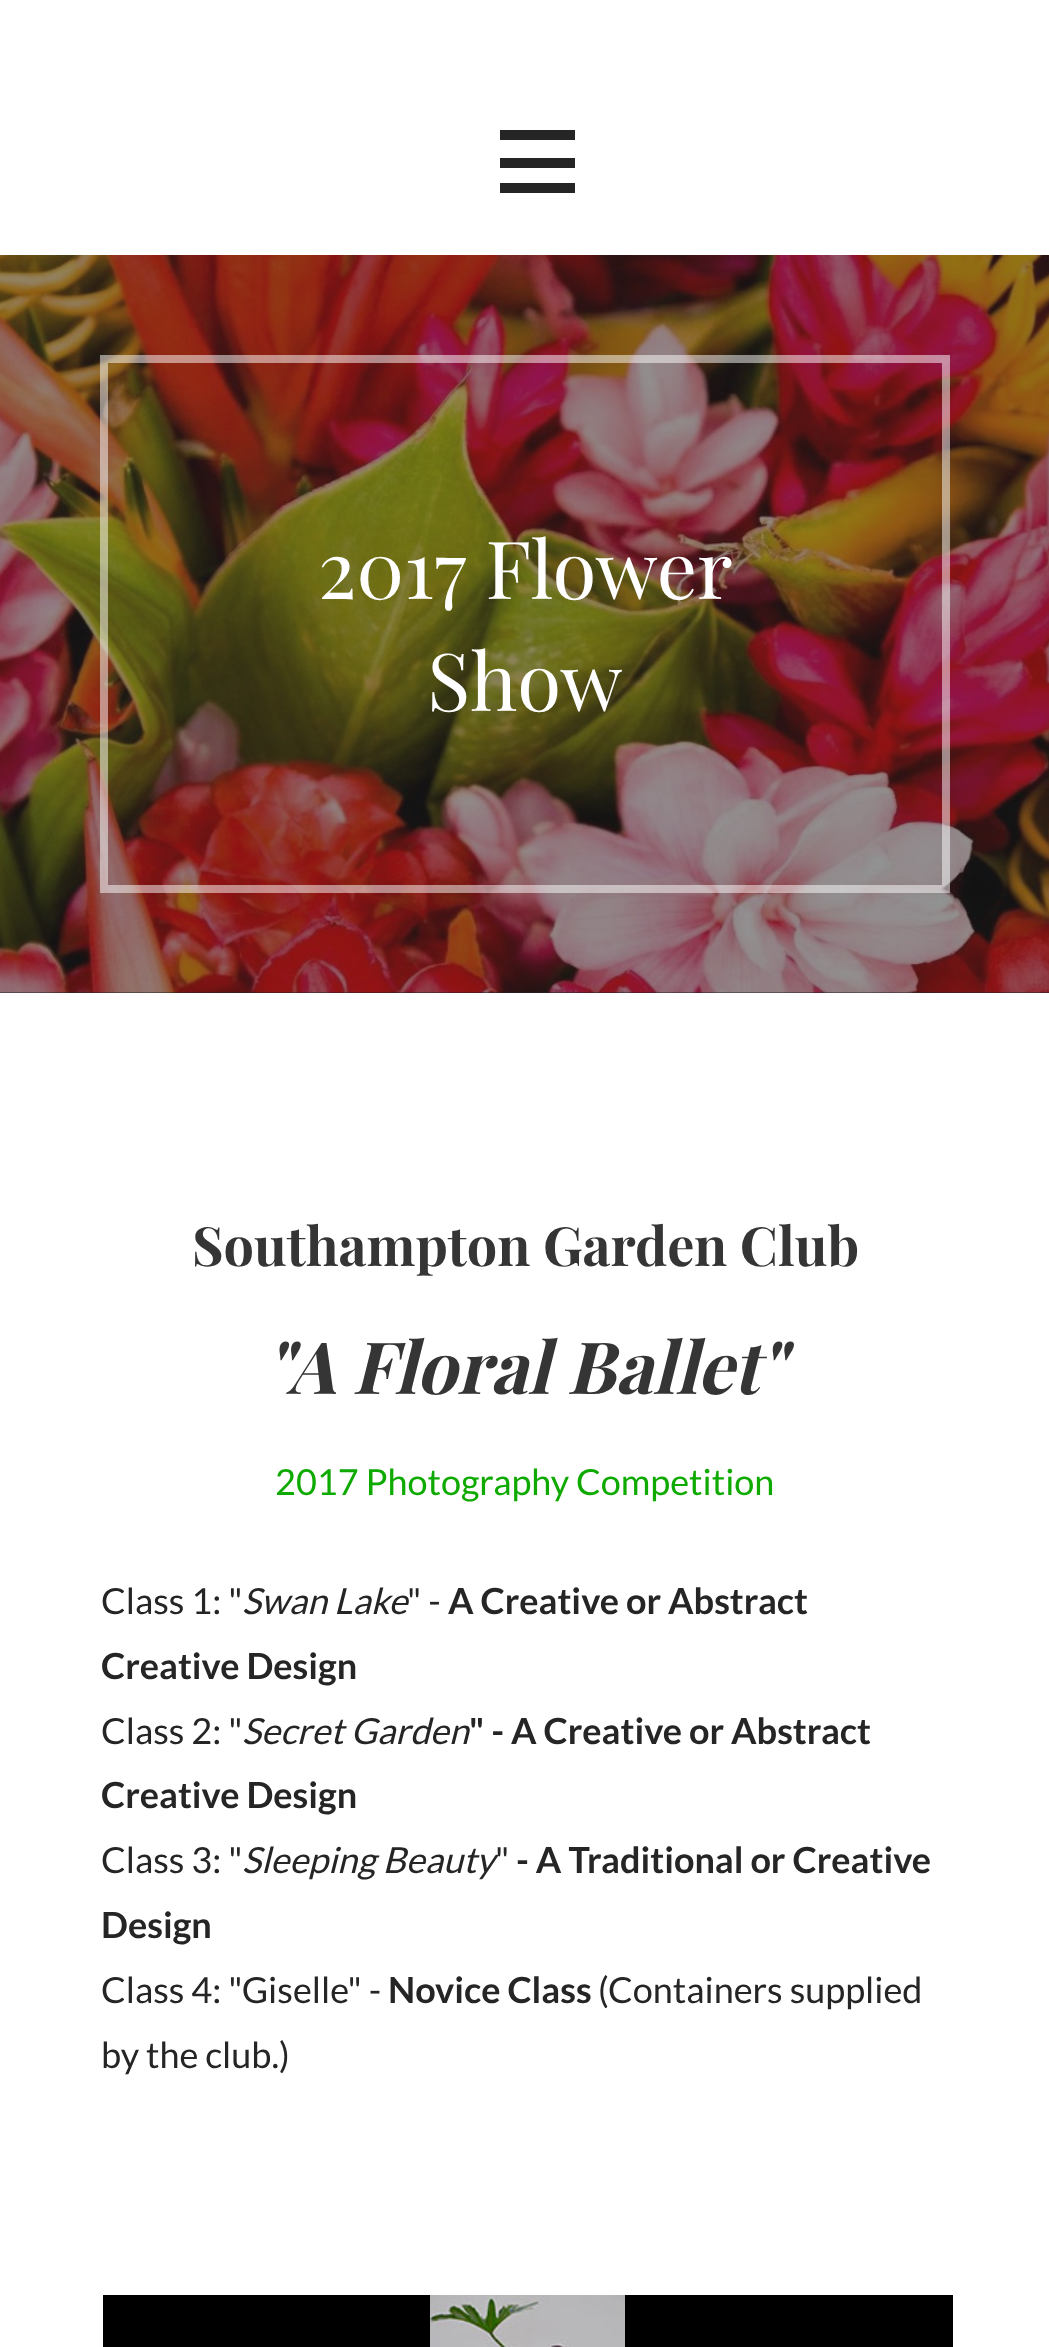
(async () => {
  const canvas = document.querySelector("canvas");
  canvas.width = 1049;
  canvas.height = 2347;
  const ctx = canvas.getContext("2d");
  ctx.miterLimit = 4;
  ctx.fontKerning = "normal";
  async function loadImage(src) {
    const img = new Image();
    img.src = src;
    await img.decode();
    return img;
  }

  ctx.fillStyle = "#ffffff";
  ctx.fillRect(0, 0, 1049, 2347);
  for (const [x, y, w, h, color] of [
    [500, 130, 75, 10, "#252525"],
    [500, 158, 75, 10, "#252525"],
    [500, 183, 75, 10, "#252525"],
    [0, 992, 1049, 1, "#252525"],
  ]) {
    ctx.fillStyle = color;
    ctx.fillRect(x, y, w, h);
  }
  ctx.drawImage(await loadImage("img/1.png"), 0, 255, 1049, 738);
  ctx.strokeStyle = "rgba(255, 255, 255, 0.5)";
  ctx.lineWidth = 8;
  ctx.strokeRect(104, 359, 842, 530);
  ctx.fillStyle = "#000000";
  ctx.fillRect(103, 2295, 850, 52);
  ctx.drawImage(await loadImage("img/2.png"), 430, 2295, 195, 52);
  ctx.font = "80px Playfair Display";
  ctx.fillStyle = "#ffffff";
  ctx.fillText("2017 Flower", 318, 599);
  ctx.fillText("Show", 427, 711);
  ctx.font = "bold 54px Playfair Display";
  ctx.fillStyle = "#353535";
  ctx.fillText("Southampton Garden Club", 192, 1266);
  ctx.font = "italic bold 72px Playfair Display";
  ctx.fillText("\"A Floral Ballet\"", 265, 1394);
  ctx.font = "36px Lato";
  ctx.fillStyle = "#0eaa00";
  ctx.fillText("2017 Photography Competition", 275, 1495);
  ctx.fillStyle = "#252525";
  ctx.fillText("Class 1: \"", 101, 1614);
  ctx.font = "italic 36px Lato";
  ctx.fillText("Swan Lake", 242, 1614);
  ctx.font = "36px Lato";
  ctx.fillText("\" -", 407, 1614);
  ctx.font = "bold 36px Lato";
  ctx.fillText("A Creative or Abstract", 448, 1614);
  ctx.fillText("Creative Design", 101, 1679);
  ctx.font = "36px Lato";
  ctx.fillText("Class 2: \"", 101, 1744);
  ctx.font = "italic 36px Lato";
  ctx.fillText("Secret Garden", 242, 1744);
  ctx.font = "bold 36px Lato";
  ctx.fillText("\" - A Creative or Abstract", 469, 1744);
  ctx.fillText("Creative Design", 101, 1808);
  ctx.font = "36px Lato";
  ctx.fillText("Class 3: \"", 101, 1873);
  ctx.font = "italic 36px Lato";
  ctx.fillText("Sleeping Beauty", 242, 1873);
  ctx.font = "36px Lato";
  ctx.fillText("\"", 495, 1873);
  ctx.font = "bold 36px Lato";
  ctx.fillText("- A Traditional or Creative", 516, 1873);
  ctx.fillText("Design", 101, 1938);
  ctx.font = "36px Lato";
  ctx.fillText("Class 4: \"Giselle\" -", 101, 2003);
  ctx.font = "bold 36px Lato";
  ctx.fillText("Novice Class", 388, 2003);
  ctx.font = "36px Lato";
  ctx.fillText("(Containers supplied", 598, 2003);
  ctx.fillText("by the club.)", 101, 2068);
})();
